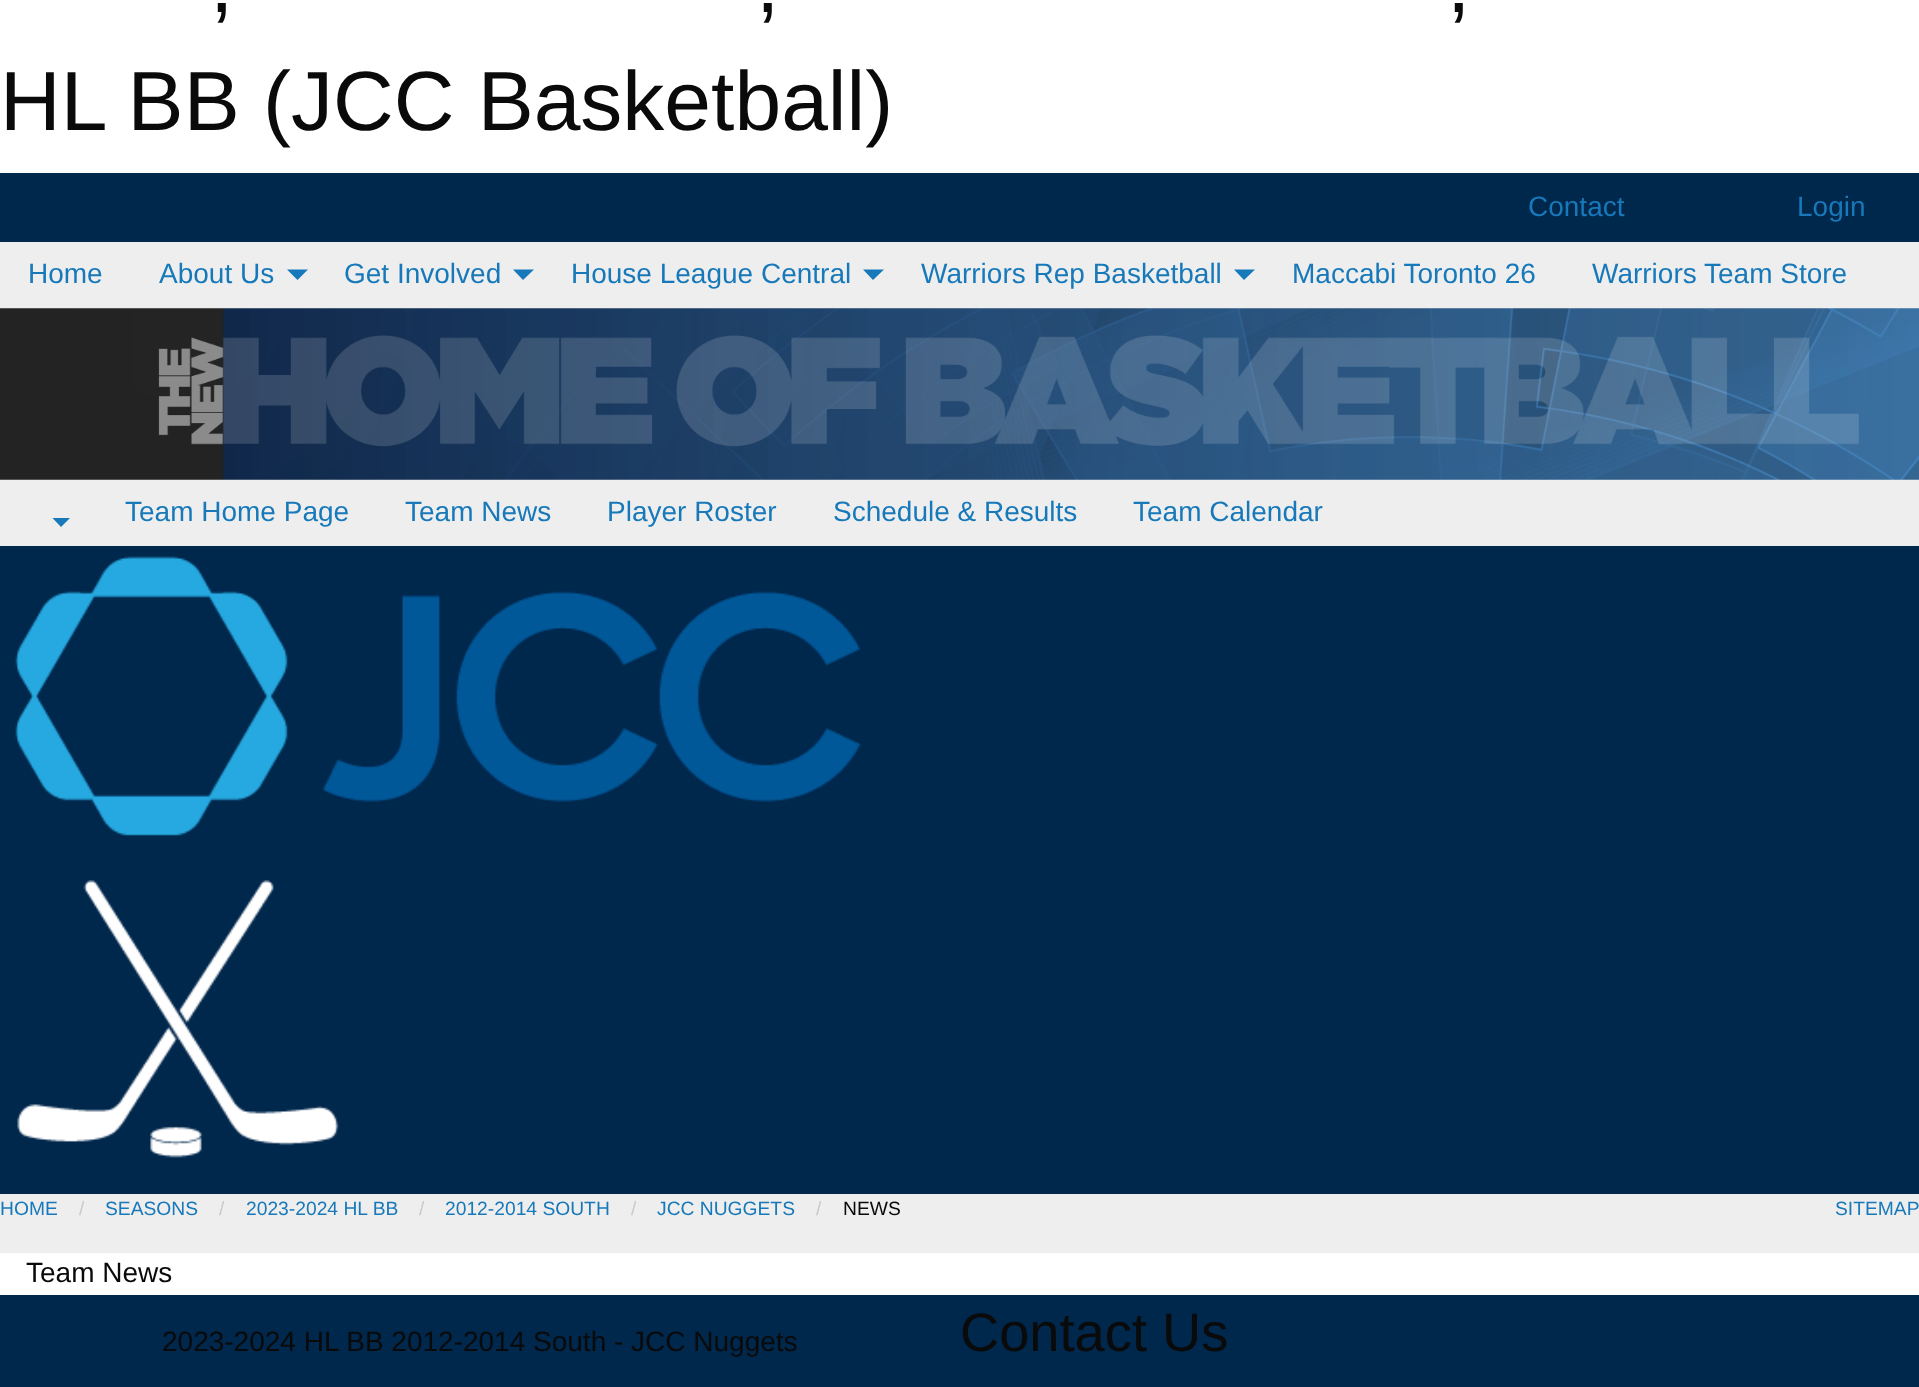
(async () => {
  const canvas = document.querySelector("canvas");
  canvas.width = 1919;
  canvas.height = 1387;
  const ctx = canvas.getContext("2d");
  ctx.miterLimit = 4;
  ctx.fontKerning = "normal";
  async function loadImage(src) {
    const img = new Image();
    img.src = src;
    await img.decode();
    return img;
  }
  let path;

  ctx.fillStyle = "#ffffff";
  ctx.fillRect(0, 0, 1919, 1387);
  ctx.fillStyle = "#00274c";
  ctx.fillRect(0, 173, 1919, 1214);
  ctx.fillStyle = "#eeeeee";
  ctx.fillRect(0, 242, 1919, 304);
  ctx.fillStyle = "#1779ba";
  path = new Path2D("M287 269.5H308L297.5 280Z");
  ctx.fill(path);
  path = new Path2D("M513 269.5H534L523 280Z");
  ctx.fill(path);
  path = new Path2D("M863 269.5H884L873 280Z");
  ctx.fill(path);
  path = new Path2D("M1234 269.5H1255L1244 280Z");
  ctx.fill(path);
  ctx.drawImage(await loadImage("img/1.png"), 0, 308, 1919, 172);
  path = new Path2D("M52.5 518H70L61 527Z");
  ctx.fill(path);
  ctx.drawImage(await loadImage("img/2.png"), 15, 556, 847, 280);
  ctx.drawImage(await loadImage("img/3.png"), 17, 880, 322, 278);
  ctx.fillStyle = "#eeeeee";
  ctx.fillRect(0, 1194, 1919, 59);
  ctx.fillStyle = "#ffffff";
  ctx.fillRect(0, 1253, 1919, 42);
  ctx.font = "84px Liberation Sans";
  ctx.fillStyle = "#0a0a0a";
  for (const [text, x, y] of [
    [",", 210, 12],
    [",", 756, 12],
    [",", 1447, 12],
    ["HL BB (JCC Basketball)", 0, 130],
  ]) {
    ctx.fillText(text, x, y);
  }
  ctx.font = "28px Liberation Sans";
  ctx.fillStyle = "#1779ba";
  for (const [text, x, y] of [
    ["Contact", 1528, 216],
    ["Login", 1797, 216],
    ["Home", 28, 283],
    ["About Us", 159, 283],
    ["Get Involved", 344, 283],
    ["House League Central", 571, 283],
    ["Warriors Rep Basketball", 921, 283],
    ["Maccabi Toronto 26", 1292, 283],
    ["Warriors Team Store", 1592, 283],
    ["Team Home Page", 125, 521],
    ["Team News", 405, 521],
    ["Player Roster", 607, 521],
    ["Schedule & Results", 833, 521],
    ["Team Calendar", 1133, 521],
  ]) {
    ctx.fillText(text, x, y);
  }
  ctx.font = "19.25px Liberation Sans";
  ctx.fillText("HOME", 0, 1215);
  ctx.fillStyle = "#cacaca";
  ctx.fillText("/", 79, 1215);
  ctx.fillStyle = "#1779ba";
  ctx.fillText("SEASONS", 105, 1215);
  ctx.fillStyle = "#cacaca";
  ctx.fillText("/", 219, 1215);
  ctx.fillStyle = "#1779ba";
  ctx.fillText("2023-2024 HL BB", 246, 1215);
  ctx.fillStyle = "#cacaca";
  ctx.fillText("/", 419, 1215);
  ctx.fillStyle = "#1779ba";
  ctx.fillText("2012-2014 SOUTH", 445, 1215);
  ctx.fillStyle = "#cacaca";
  ctx.fillText("/", 631, 1215);
  ctx.fillStyle = "#1779ba";
  ctx.fillText("JCC NUGGETS", 657, 1215);
  ctx.fillStyle = "#cacaca";
  ctx.fillText("/", 816, 1215);
  ctx.fillStyle = "#0a0a0a";
  ctx.fillText("NEWS", 843, 1215);
  ctx.fillStyle = "#1779ba";
  ctx.fillText("SITEMAP", 1835, 1215);
  ctx.font = "28px Liberation Sans";
  ctx.fillStyle = "#0a0a0a";
  ctx.fillText("Team News", 26, 1282);
  ctx.fillText("2023-2024 HL BB 2012-2014 South - JCC Nuggets", 162, 1351);
  ctx.font = "54.25px Liberation Sans";
  ctx.fillText("Contact Us", 960, 1351);
})();
